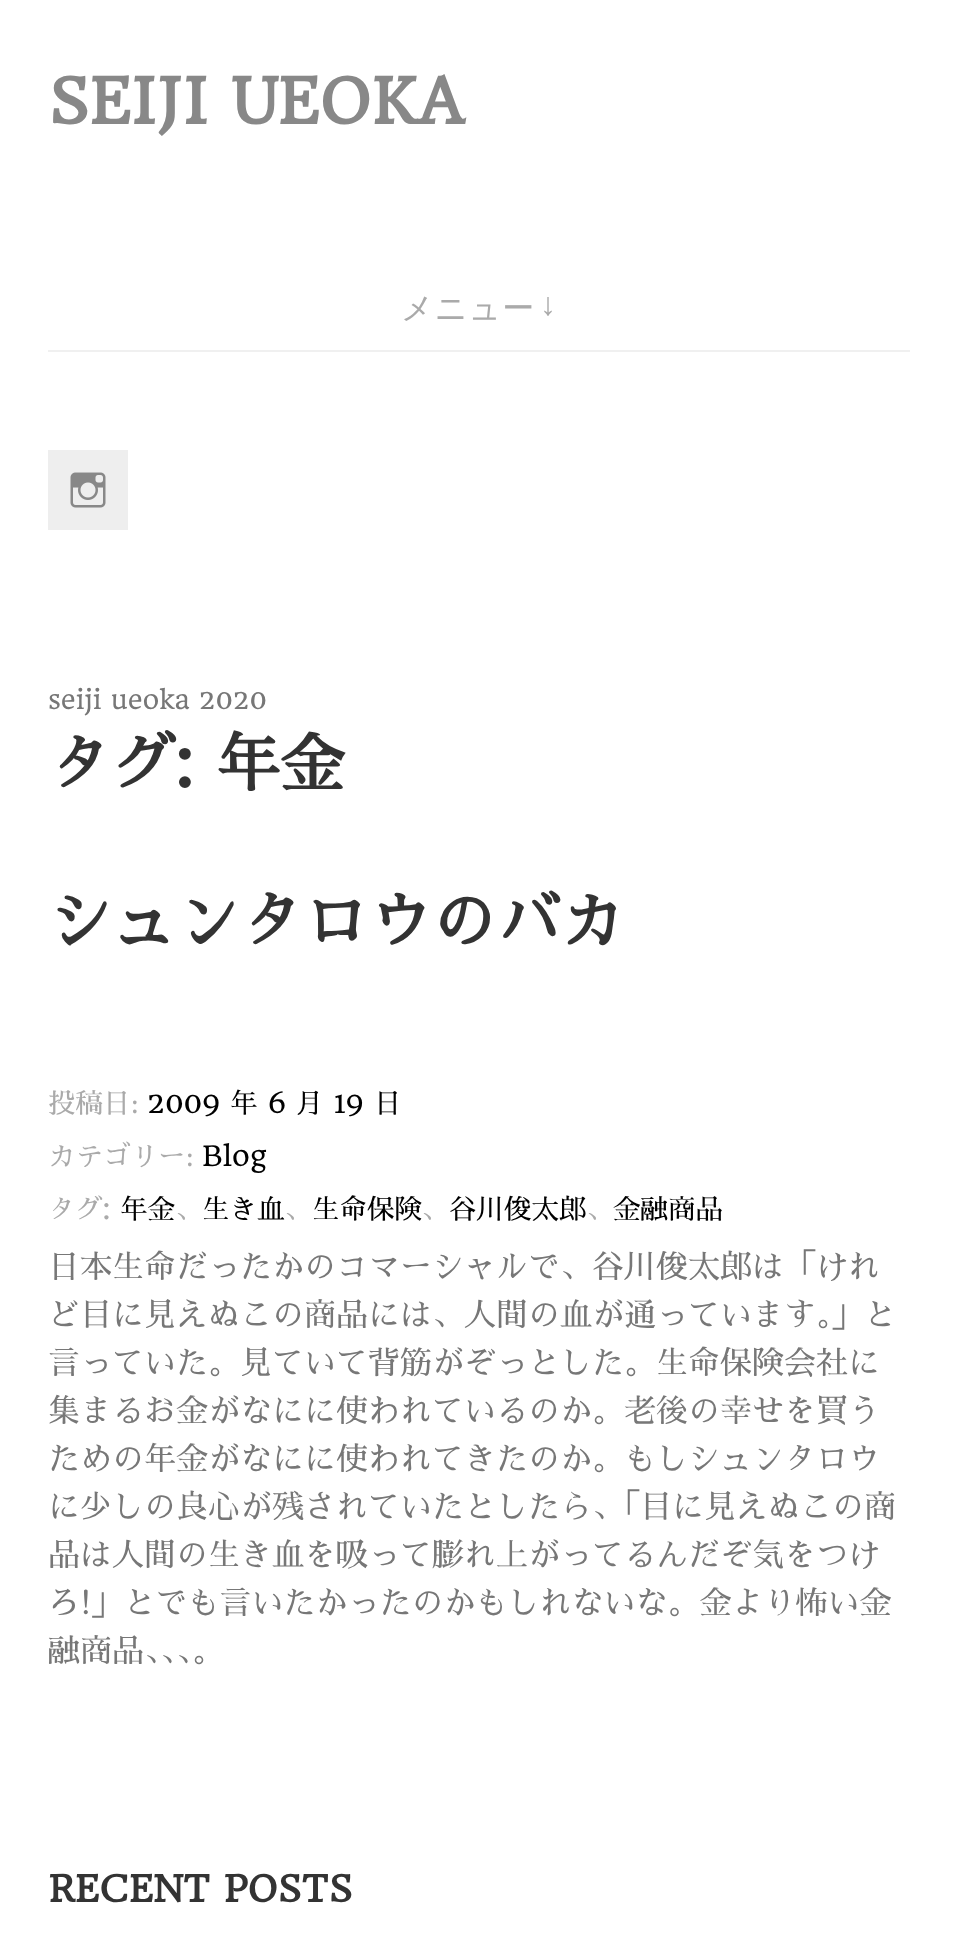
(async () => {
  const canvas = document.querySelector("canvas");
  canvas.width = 958;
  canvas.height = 1948;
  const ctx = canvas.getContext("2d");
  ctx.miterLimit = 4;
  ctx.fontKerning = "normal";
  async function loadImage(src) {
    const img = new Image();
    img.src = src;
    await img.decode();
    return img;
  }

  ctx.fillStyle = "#ffffff";
  ctx.fillRect(0, 0, 958, 1948);
  ctx.fillStyle = "#f0f0f0";
  ctx.fillRect(48, 350, 862, 2);
  ctx.fillStyle = "#eeeeee";
  ctx.fillRect(48, 450, 80, 80);
  ctx.drawImage(await loadImage("img/1.png"), 70, 472, 36, 36);
  ctx.font = "bold 62px HeadlandOne";
  ctx.fillStyle = "#888888";
  ctx.fillText("SEIJI UEOKA", 48, 124);
  ctx.letterSpacing = "1px";
  ctx.font = "500 32px WenQuanYi Zen Hei";
  ctx.fillStyle = "#aaaaaa";
  ctx.fillText("メニュー", 401, 319);
  ctx.font = "32px Liberation Sans";
  ctx.fillText("↓", 540, 315);
  ctx.letterSpacing = "0px";
  ctx.font = "25.5px HeadlandOne";
  ctx.fillStyle = "#777777";
  ctx.fillText("seiji ueoka 2020", 48, 709);
  ctx.font = "bold 64px Sawarabi Mincho";
  ctx.fillStyle = "#333333";
  ctx.fillText("タグ", 48, 787);
  ctx.font = "bold 64px HeadlandOne";
  ctx.fillText(":", 176, 787);
  ctx.font = "bold 64px Sawarabi Mincho";
  ctx.fillText("年金", 216, 787);
  ctx.fillText("シュンタロウのバカ", 48, 944);
  ctx.font = "27.5px Sawarabi Mincho";
  ctx.fillStyle = "#aaaaaa";
  ctx.fillText("投稿日:", 48, 1113);
  ctx.font = "27.5px HeadlandOne";
  ctx.fillStyle = "#000000";
  ctx.fillText("2009", 147, 1113);
  ctx.font = "27.5px Sawarabi Mincho";
  ctx.fillText("年", 230, 1113);
  ctx.font = "27.5px HeadlandOne";
  ctx.fillText("6", 268, 1113);
  ctx.font = "27.5px Sawarabi Mincho";
  ctx.fillText("月", 296, 1113);
  ctx.font = "27.5px HeadlandOne";
  ctx.fillText("19", 334, 1113);
  ctx.font = "27.5px Sawarabi Mincho";
  ctx.fillText("日", 374, 1113);
  ctx.fillStyle = "#aaaaaa";
  ctx.fillText("カテゴリー:", 48, 1166);
  ctx.font = "27.5px HeadlandOne";
  ctx.fillStyle = "#000000";
  ctx.fillText("Blog", 202, 1166);
  ctx.font = "27.5px Sawarabi Mincho";
  ctx.fillStyle = "#aaaaaa";
  ctx.fillText("タグ", 48, 1219);
  ctx.font = "27.5px HeadlandOne";
  ctx.fillText(":", 103, 1219);
  ctx.font = "27.5px Sawarabi Mincho";
  ctx.fillStyle = "#000000";
  ctx.fillText("年金", 120, 1219);
  ctx.fillStyle = "#aaaaaa";
  ctx.fillText("、", 175, 1219);
  ctx.fillStyle = "#000000";
  ctx.fillText("生き血", 202, 1219);
  ctx.fillStyle = "#aaaaaa";
  ctx.fillText("、", 284, 1219);
  ctx.fillStyle = "#000000";
  ctx.fillText("生命保険", 312, 1219);
  ctx.fillStyle = "#aaaaaa";
  ctx.fillText("、", 421, 1219);
  ctx.fillStyle = "#000000";
  ctx.fillText("谷川俊太郎", 449, 1219);
  ctx.fillStyle = "#aaaaaa";
  ctx.fillText("、", 586, 1219);
  ctx.fillStyle = "#000000";
  ctx.fillText("金融商品", 613, 1219);
  ctx.font = "32px Sawarabi Mincho";
  ctx.fillStyle = "#777777";
  for (const [text, x, y] of [
    ["日本生命だったかのコマーシャルで、谷川俊太郎は「けれ", 48, 1278],
    ["ど目に見えぬこの商品には、人間の血が通っています。」と", 48, 1326],
    ["言っていた。見ていて背筋がぞっとした。生命保険会社に", 48, 1374],
    ["集まるお金がなにに使われているのか。老後の幸せを買う", 48, 1422],
    ["ための年金がなにに使われてきたのか。もしシュンタロウ", 48, 1470],
    ["に少しの良心が残されていたとしたら、「目に見えぬこの商", 48, 1518],
    ["品は人間の生き血を吸って膨れ上がってるんだぞ気をつけ", 48, 1566],
    ["ろ!」とでも言いたかったのかもしれないな。金より怖い金", 48, 1614],
    ["融商品、、、。", 48, 1662],
  ]) {
    ctx.fillText(text, x, y);
  }
  ctx.font = "bold 36px HeadlandOne";
  ctx.fillStyle = "#333333";
  ctx.fillText("RECENT POSTS", 48, 1902);
})();
